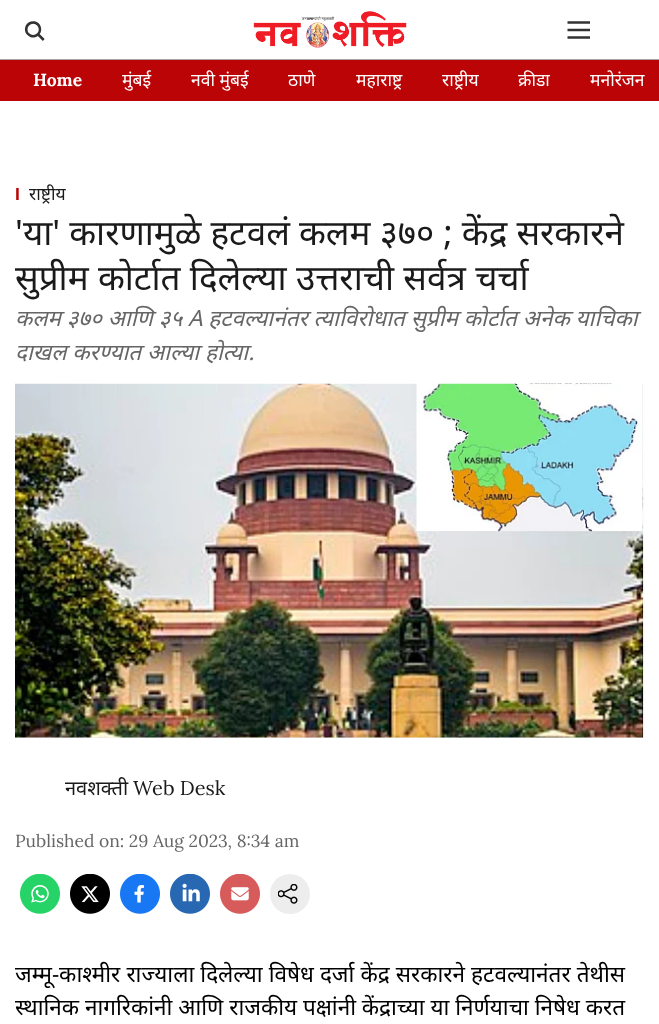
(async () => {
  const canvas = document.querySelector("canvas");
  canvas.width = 659;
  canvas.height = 1024;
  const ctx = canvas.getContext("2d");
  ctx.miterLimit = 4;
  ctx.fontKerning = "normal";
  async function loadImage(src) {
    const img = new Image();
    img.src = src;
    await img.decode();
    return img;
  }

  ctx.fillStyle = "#ffffff";
  ctx.fillRect(0, 0, 659, 1024);
  ctx.fillStyle = "#a4a4a4";
  ctx.fillRect(0, 59, 659, 1);
  ctx.drawImage(await loadImage("img/1.png"), 253, 11, 154, 37);
  ctx.drawImage(await loadImage("img/2.png"), 24, 21, 21, 20);
  ctx.drawImage(await loadImage("img/3.png"), 567, 21, 23, 18);
  ctx.fillStyle = "#ba0406";
  ctx.fillRect(0, 60, 659, 41);
  ctx.fillStyle = "#f0f0f0";
  ctx.fillRect(15, 737, 630, 1);
  ctx.drawImage(await loadImage("img/4.png"), 15, 383, 630, 355);
  ctx.drawImage(await loadImage("img/5.png"), 20, 874, 40, 40);
  ctx.drawImage(await loadImage("img/6.png"), 70, 874, 40, 40);
  ctx.drawImage(await loadImage("img/7.png"), 120, 874, 40, 40);
  ctx.drawImage(await loadImage("img/8.png"), 170, 874, 40, 40);
  ctx.drawImage(await loadImage("img/9.png"), 220, 874, 40, 40);
  ctx.fillStyle = "#ededed";
  ctx.beginPath();
  ctx.arc(290, 894, 20, 0, Math.PI * 2);
  ctx.fill();
  ctx.drawImage(await loadImage("img/10.png"), 278, 884, 20, 20);
  ctx.font = "bold 17.5px Lora";
  ctx.fillStyle = "#ffffff";
  ctx.fillText("Home", 33, 86);
  ctx.font = "17.5px Noto Sans";
  for (const [text, x, y] of [
    ["मुंबई", 122, 86],
    ["नवी मुंबई", 191, 86],
    ["ठाणे", 288, 86],
    ["महाराष्ट्र", 356, 86],
    ["राष्ट्रीय", 442, 86],
    ["क्रीडा", 518, 86],
    ["मनोरंजन", 590, 86],
  ]) {
    ctx.fillText(text, x, y);
  }
  ctx.font = "bold 17.5px Liberation Sans";
  ctx.fillStyle = "#ba0406";
  ctx.fillText("I", 15, 200);
  ctx.font = "17.5px Noto Sans";
  ctx.fillStyle = "#1a1a1a";
  ctx.fillText("राष्ट्रीय", 29, 200);
  ctx.font = "35px Noto Sans";
  ctx.fillText("'या' कारणामुळे हटवलं कलम ३७० ; केंद्र सरकारने", 15, 245);
  ctx.wordSpacing = "0.25px";
  ctx.fillText("सुप्रीम कोर्टात दिलेल्या उत्तराची सर्वत्र चर्चा", 15, 290);
  ctx.wordSpacing = "0px";
  ctx.font = "italic 22.5px Noto Sans";
  ctx.fillStyle = "#666666";
  ctx.fillText("कलम ३७० आणि ३५ A हटवल्यानंतर त्याविरोधात सुप्रीम कोर्टात अनेक याचिका", 15, 326);
  ctx.fillText("दाखल करण्यात आल्या होत्या.", 15, 360);
  ctx.font = "20px Noto Sans";
  ctx.fillStyle = "#1a1a1a";
  ctx.fillText("नवशक्ती", 65, 795);
  ctx.font = "20px Lora";
  ctx.fillText("Web Desk", 133, 795);
  ctx.font = "17.5px Lora";
  ctx.fillStyle = "#666666";
  ctx.fillText("Published on: 29 Aug 2023, 8:34 am", 15, 847);
  ctx.wordSpacing = "0.25px";
  ctx.font = "22.5px Noto Sans";
  ctx.fillStyle = "#000000";
  ctx.fillText("जम्मू-काश्मीर राज्याला दिलेल्या विषेध दर्जा केंद्र सरकारने हटवल्यानंतर तेथीस", 15, 982);
  ctx.wordSpacing = "0px";
  ctx.fillText("स्थानिक नागरिकांनी आणि राजकीय पक्षांनी केंद्राच्या या निर्णयाचा निषेध करत", 15, 1015);
})();
